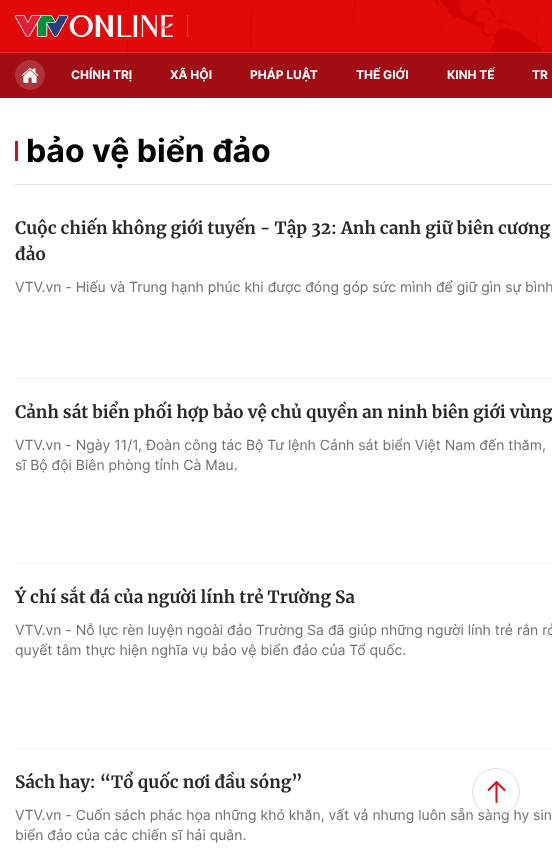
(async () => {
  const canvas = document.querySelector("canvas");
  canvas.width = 552;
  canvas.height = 848;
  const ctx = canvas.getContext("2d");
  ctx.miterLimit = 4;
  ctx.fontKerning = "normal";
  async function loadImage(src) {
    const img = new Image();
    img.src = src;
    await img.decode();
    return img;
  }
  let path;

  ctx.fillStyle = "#ffffff";
  ctx.fillRect(0, 0, 552, 848);
  ctx.drawImage(await loadImage("img/1.png"), 0, 0, 552, 52);
  ctx.drawImage(await loadImage("img/2.png"), 15, 15, 158, 22);
  for (const [x, y, w, h, color] of [
    [187, 15, 1, 22, "#f0464f"],
    [0, 53, 552, 45, "#a00d14"],
    [0, 52, 552, 1, "#ed212b"],
  ]) {
    ctx.fillStyle = color;
    ctx.fillRect(x, y, w, h);
  }
  ctx.fillStyle = "#af343a";
  ctx.beginPath();
  ctx.arc(30, 75, 15, 0, Math.PI * 2);
  ctx.fill();
  ctx.drawImage(await loadImage("img/3.png"), 21, 68, 18, 15);
  for (const [x, y, w, h, color] of [
    [15, 141, 3, 20, "#d4111b"],
    [15, 184, 537, 1, "#e5e5e5"],
    [15, 378, 537, 1, "#f1f1f1"],
    [15, 563, 537, 1, "#f1f1f1"],
    [15, 748, 537, 1, "#f1f1f1"],
  ]) {
    ctx.fillStyle = color;
    ctx.fillRect(x, y, w, h);
  }
  ctx.font = "bold 12px Inter";
  ctx.fillStyle = "#ffffff";
  for (const [text, x, y] of [
    ["CHÍNH TRỊ", 71, 79],
    ["XÃ HỘI", 170, 79],
    ["PHÁP LUẬT", 250, 79],
    ["THẾ GIỚI", 356, 79],
    ["KINH TẾ", 447, 79],
    ["TR", 532, 79],
  ]) {
    ctx.fillText(text, x, y);
  }
  ctx.font = "bold 32px Inter";
  ctx.fillStyle = "#040404";
  ctx.fillText("bảo vệ biển đảo", 26, 162);
  ctx.font = "bold 17px Merriweather";
  ctx.fillStyle = "#292929";
  ctx.fillText("Cuộc chiến không giới tuyến - Tập 32: Anh canh giữ biên cương", 15, 234);
  ctx.fillText("đảo", 15, 260);
  ctx.font = "14px Inter";
  ctx.fillStyle = "#707070";
  ctx.fillText("VTV.vn - Hiếu và Trung hạnh phúc khi được đóng góp sức mình để giữ gìn sự bình", 15, 292);
  ctx.font = "bold 17px Merriweather";
  ctx.fillStyle = "#292929";
  ctx.fillText("Cảnh sát biển phối hợp bảo vệ chủ quyền an ninh biên giới vùng", 15, 418);
  ctx.font = "14px Inter";
  ctx.fillStyle = "#707070";
  ctx.fillText("VTV.vn - Ngày 11/1, Đoàn công tác Bộ Tư lệnh Cảnh sát biển Việt Nam đến thăm,", 15, 450);
  ctx.fillText("sĩ Bộ đội Biên phòng tỉnh Cà Mau.", 15, 470);
  ctx.font = "bold 17px Merriweather";
  ctx.fillStyle = "#292929";
  ctx.fillText("Ý chí sắt đá của người lính trẻ Trường Sa", 15, 603);
  ctx.font = "14px Inter";
  ctx.fillStyle = "#707070";
  ctx.fillText("VTV.vn - Nỗ lực rèn luyện ngoài đảo Trường Sa đã giúp những người lính trẻ rắn rỏ", 15, 635);
  ctx.fillText("quyết tâm thực hiện nghĩa vụ bảo vệ biển đảo của Tổ quốc.", 15, 655);
  ctx.font = "bold 17px Merriweather";
  ctx.fillStyle = "#292929";
  ctx.fillText("Sách hay: “Tổ quốc nơi đầu sóng”", 15, 788);
  ctx.font = "14px Inter";
  ctx.fillStyle = "#707070";
  ctx.fillText("VTV.vn - Cuốn sách phác họa những khó khăn, vất vả nhưng luôn sẵn sàng hy sin", 15, 820);
  ctx.fillText("biển đảo của các chiến sĩ hải quân.", 15, 840);
  ctx.beginPath();
  ctx.arc(496, 792, 23.5, 0, Math.PI * 2);
  ctx.strokeStyle = "#dddddd";
  ctx.stroke();
  path = new Path2D("M488.5 790L496.5 782M496.5 782L504.5 790M496.5 782V802");
  ctx.strokeStyle = "#d4111b";
  ctx.lineWidth = 2;
  ctx.lineCap = "round";
  ctx.lineJoin = "round";
  ctx.stroke(path);
})();
